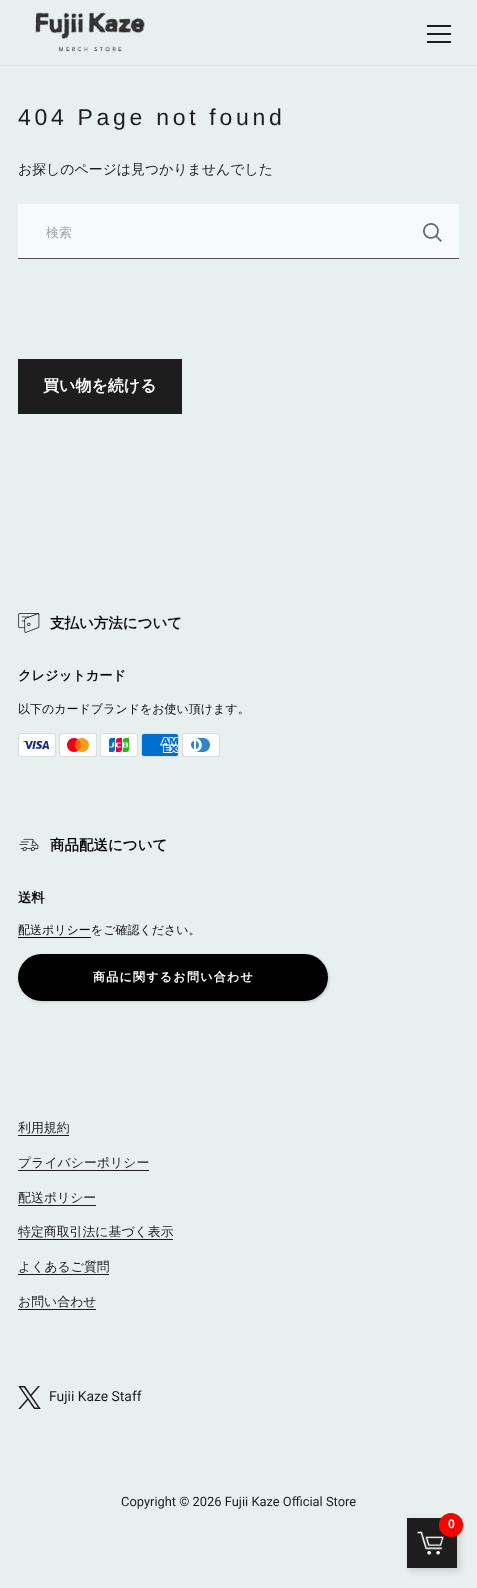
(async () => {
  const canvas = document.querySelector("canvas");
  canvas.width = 477;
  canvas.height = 1588;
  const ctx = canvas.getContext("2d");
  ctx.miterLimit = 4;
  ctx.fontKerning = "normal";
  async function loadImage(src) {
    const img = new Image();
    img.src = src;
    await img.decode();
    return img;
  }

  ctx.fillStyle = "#e8efef";
  ctx.fillRect(0, 0, 477, 1588);
  ctx.fillStyle = "#f7fafa";
  ctx.fillRect(18, 204, 441, 54);
  ctx.fillStyle = "#4f5151";
  ctx.fillRect(18, 258, 441, 1);
  ctx.drawImage(await loadImage("img/1.png"), 423, 223, 19, 19);
  ctx.fillStyle = "#1d1d1d";
  ctx.fillRect(18, 359, 164, 55);
  ctx.drawImage(await loadImage("img/2.png"), 18, 613, 22, 20);
  ctx.drawImage(await loadImage("img/3.png"), 18, 733, 38, 24);
  ctx.drawImage(await loadImage("img/4.png"), 59, 733, 38, 24);
  ctx.drawImage(await loadImage("img/5.png"), 100, 733, 38, 24);
  ctx.drawImage(await loadImage("img/6.png"), 141, 733, 38, 24);
  ctx.drawImage(await loadImage("img/7.png"), 182, 733, 38, 24);
  ctx.drawImage(await loadImage("img/8.png"), 19, 838, 20, 14);
  ctx.fillStyle = "#0a0a0a";
  ctx.fillRect(18, 937, 73, 1);
  ctx.fillStyle = "rgba(0, 0, 0, 0.15)";
  ctx.filter = "blur(1.5px)";
  ctx.beginPath();
  ctx.roundRect(19, 955, 310, 47, 23.5);
  ctx.fill();
  ctx.filter = "none";
  ctx.fillStyle = "#000000";
  ctx.beginPath();
  ctx.roundRect(18, 954, 310, 47, 23.5);
  ctx.fill();
  for (const [x, y, w, h, color] of [
    [18, 1135, 51, 1, "#1d1d1d"],
    [18, 1170, 131, 1, "#1d1d1d"],
    [18, 1205, 78, 1, "#1d1d1d"],
    [18, 1239, 155, 1, "#1d1d1d"],
    [18, 1274, 91, 1, "#1d1d1d"],
    [18, 1309, 78, 1, "#1d1d1d"],
  ]) {
    ctx.fillStyle = color;
    ctx.fillRect(x, y, w, h);
  }
  ctx.drawImage(await loadImage("img/9.png"), 18, 1386, 23, 23);
  ctx.fillStyle = "#dfe9e9";
  ctx.fillRect(0, 65, 477, 1);
  ctx.drawImage(await loadImage("img/10.png"), 35, 12, 110, 40);
  for (const [x, y, w, h, color] of [
    [427, 25, 24, 2, "#1d1d1d"],
    [427, 33, 24, 2, "#1d1d1d"],
    [427, 41, 24, 2, "#1d1d1d"],
  ]) {
    ctx.fillStyle = color;
    ctx.fillRect(x, y, w, h);
  }
  ctx.fillStyle = "rgba(64, 64, 64, 0.19)";
  ctx.filter = "blur(3.5px)";
  ctx.beginPath();
  ctx.rect(410, 1521, 50, 50);
  ctx.fill();
  ctx.filter = "none";
  ctx.fillStyle = "#1d1d1d";
  ctx.fillRect(407, 1518, 50, 50);
  ctx.drawImage(await loadImage("img/11.png"), 417, 1531, 27, 24);
  ctx.fillStyle = "rgba(37, 37, 37, 0.22)";
  ctx.filter = "blur(0.5px)";
  ctx.beginPath();
  ctx.roundRect(440, 1514, 24, 24, 12);
  ctx.fill();
  ctx.filter = "none";
  ctx.fillStyle = "#fe0000";
  ctx.beginPath();
  ctx.arc(451, 1525, 12, 0, Math.PI * 2);
  ctx.fill();
  ctx.letterSpacing = "3.7px";
  ctx.font = "23px Liberation Sans";
  ctx.fillStyle = "#1d1d1d";
  ctx.fillText("404 Page not found", 18, 125);
  ctx.letterSpacing = "0px";
  ctx.font = "500 13.9px WenQuanYi Zen Hei";
  ctx.fillText("お探しのページは見つかりませんでした", 18, 174);
  ctx.font = "500 12.9px WenQuanYi Zen Hei";
  ctx.fillStyle = "#a3a6a6";
  ctx.fillText("検索", 46, 237);
  ctx.font = "bold 16px WenQuanYi Zen Hei";
  ctx.fillStyle = "#ffffff";
  ctx.fillText("買い物を続ける", 43, 391);
  ctx.font = "bold 14.5px WenQuanYi Zen Hei";
  ctx.fillStyle = "#0a0a0a";
  ctx.fillText("支払い方法について", 50, 628);
  ctx.font = "bold 13.25px WenQuanYi Zen Hei";
  ctx.fillText("クレジットカード", 18, 680);
  ctx.font = "500 12px WenQuanYi Zen Hei";
  ctx.fillText("以下のカードブランドをお使い頂けます。", 18, 713);
  ctx.font = "bold 14.5px WenQuanYi Zen Hei";
  ctx.fillText("商品配送について", 50, 850);
  ctx.font = "bold 13.25px WenQuanYi Zen Hei";
  ctx.fillText("送料", 18, 902);
  ctx.font = "500 12px WenQuanYi Zen Hei";
  ctx.fillText("配送ポリシーをご確認ください。", 18, 934);
  ctx.letterSpacing = "1.25px";
  ctx.font = "bold 12px WenQuanYi Zen Hei";
  ctx.fillStyle = "#ffffff";
  ctx.fillText("商品に関するお問い合わせ", 93, 981);
  ctx.letterSpacing = "0px";
  ctx.font = "500 12.9px WenQuanYi Zen Hei";
  ctx.fillStyle = "#1d1d1d";
  for (const [text, x, y] of [
    ["利用規約", 18, 1132],
    ["プライバシーポリシー", 18, 1167],
    ["配送ポリシー", 18, 1202],
    ["特定商取引法に基づく表示", 18, 1236],
    ["よくあるご質問", 18, 1271],
    ["お問い合わせ", 18, 1306],
  ]) {
    ctx.fillText(text, x, y);
  }
  ctx.font = "13.9px Roboto";
  ctx.fillText("Fujii Kaze Staff", 49, 1401);
  ctx.font = "12.9px Roboto";
  ctx.fillText("Copyright © 2026 Fujii Kaze Official Store", 121, 1506);
  ctx.font = "600 12px Roboto";
  ctx.fillStyle = "#ffffff";
  ctx.fillText("0", 448, 1528);
})();
